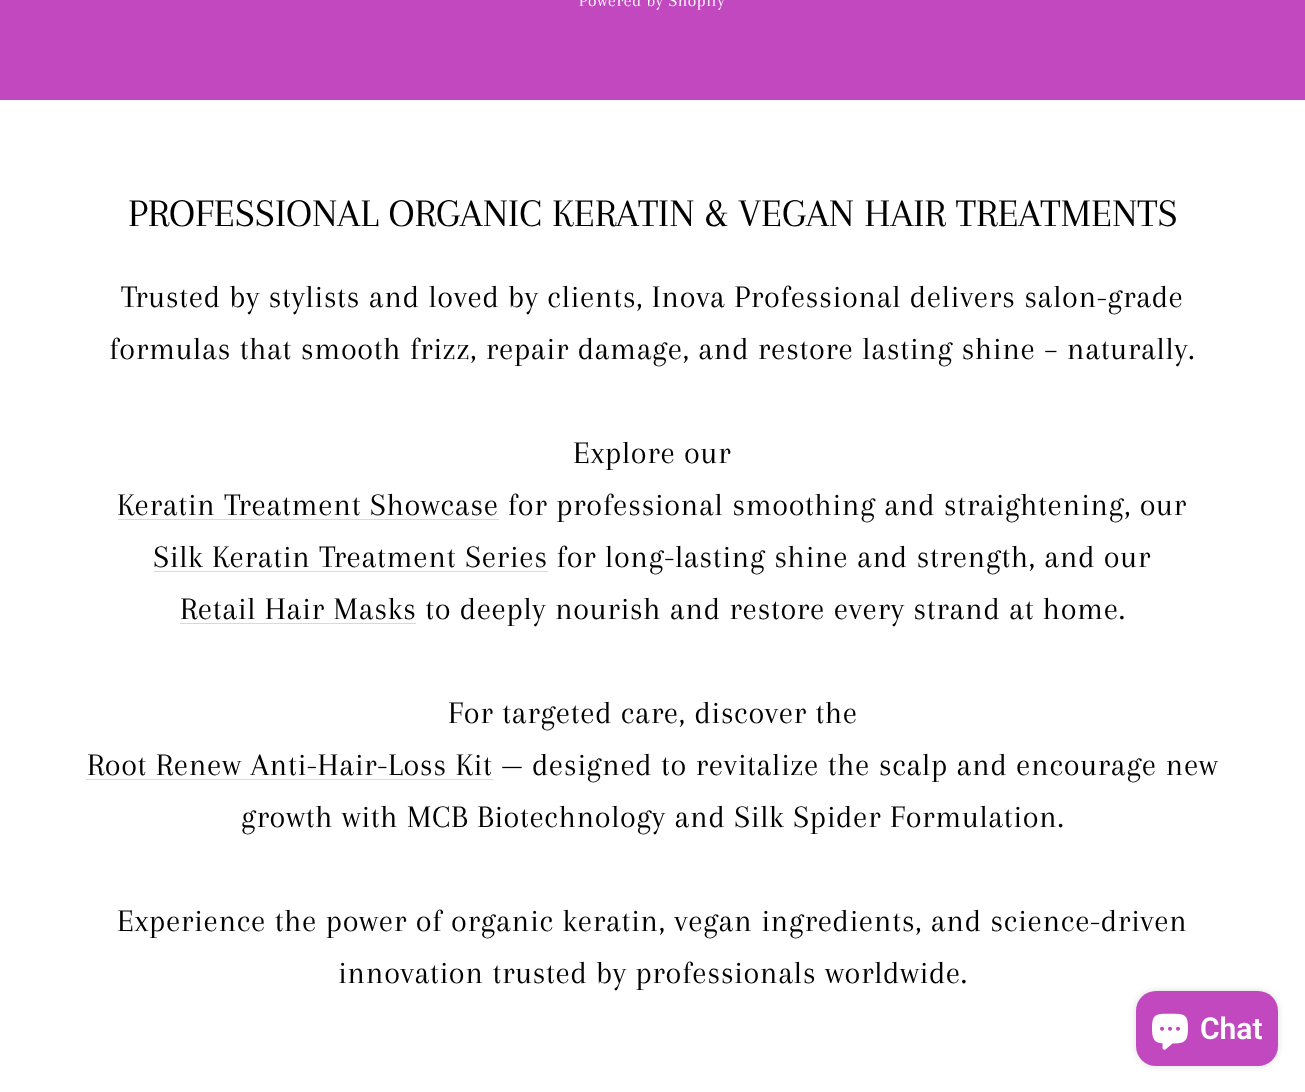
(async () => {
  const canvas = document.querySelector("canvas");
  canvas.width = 1305;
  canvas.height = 1092;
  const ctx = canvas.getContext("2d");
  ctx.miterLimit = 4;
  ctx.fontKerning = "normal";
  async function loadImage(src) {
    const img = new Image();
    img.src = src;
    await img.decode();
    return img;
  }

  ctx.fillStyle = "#ffffff";
  ctx.fillRect(0, 0, 1305, 1092);
  for (const [x, y, w, h, color] of [
    [0, 0, 1305, 100, "#c248c0"],
    [118, 519, 381, 1, "#d9d9d9"],
    [154, 571, 394, 1, "#d9d9d9"],
    [180, 623, 236, 1, "#d9d9d9"],
    [86, 779, 407, 1, "#d9d9d9"],
  ]) {
    ctx.fillStyle = color;
    ctx.fillRect(x, y, w, h);
  }
  ctx.fillStyle = "rgba(0, 0, 0, 0.15)";
  ctx.filter = "blur(3px)";
  ctx.beginPath();
  ctx.roundRect(1136, 991, 142, 75, 20);
  ctx.fill();
  ctx.filter = "none";
  ctx.fillStyle = "#c248c0";
  ctx.beginPath();
  ctx.roundRect(1136, 991, 142, 75, 20);
  ctx.fill();
  ctx.drawImage(await loadImage("img/1.png"), 1152, 1013, 36, 37);
  ctx.letterSpacing = "0.62px";
  ctx.font = "17.5px Arapey";
  ctx.fillStyle = "#ffffff";
  ctx.fillText("Powered by Shopify", 579, 6);
  ctx.letterSpacing = "0px";
  ctx.font = "40.4px Arapey";
  ctx.fillStyle = "#000000";
  ctx.fillText("PROFESSIONAL ORGANIC KERATIN & VEGAN HAIR TREATMENTS", 128, 226);
  ctx.letterSpacing = "0.62px";
  ctx.font = "32.5px Arapey";
  for (const [text, x, y] of [
    ["Trusted by stylists and loved by clients, Inova Professional delivers salon-grade", 121, 307],
    ["formulas that smooth frizz, repair damage, and restore lasting shine – naturally.", 109, 359],
    ["Explore our", 573, 463],
    ["Keratin Treatment Showcase for professional smoothing and straightening, our", 117, 515],
    ["Silk Keratin Treatment Series for long-lasting shine and strength, and our", 153, 567],
    ["Retail Hair Masks to deeply nourish and restore every strand at home.", 180, 619],
    ["For targeted care, discover the", 448, 723],
    ["Root Renew Anti-Hair-Loss Kit — designed to revitalize the scalp and encourage new", 87, 775],
    ["growth with MCB Biotechnology and Silk Spider Formulation.", 241, 827],
    ["Experience the power of organic keratin, vegan ingredients, and science-driven", 117, 931],
    ["innovation trusted by professionals worldwide.", 338, 983],
  ]) {
    ctx.fillText(text, x, y);
  }
  ctx.letterSpacing = "0px";
  ctx.font = "600 30px Roboto";
  ctx.fillStyle = "#ffffff";
  ctx.fillText("Chat", 1200, 1039);
})();
